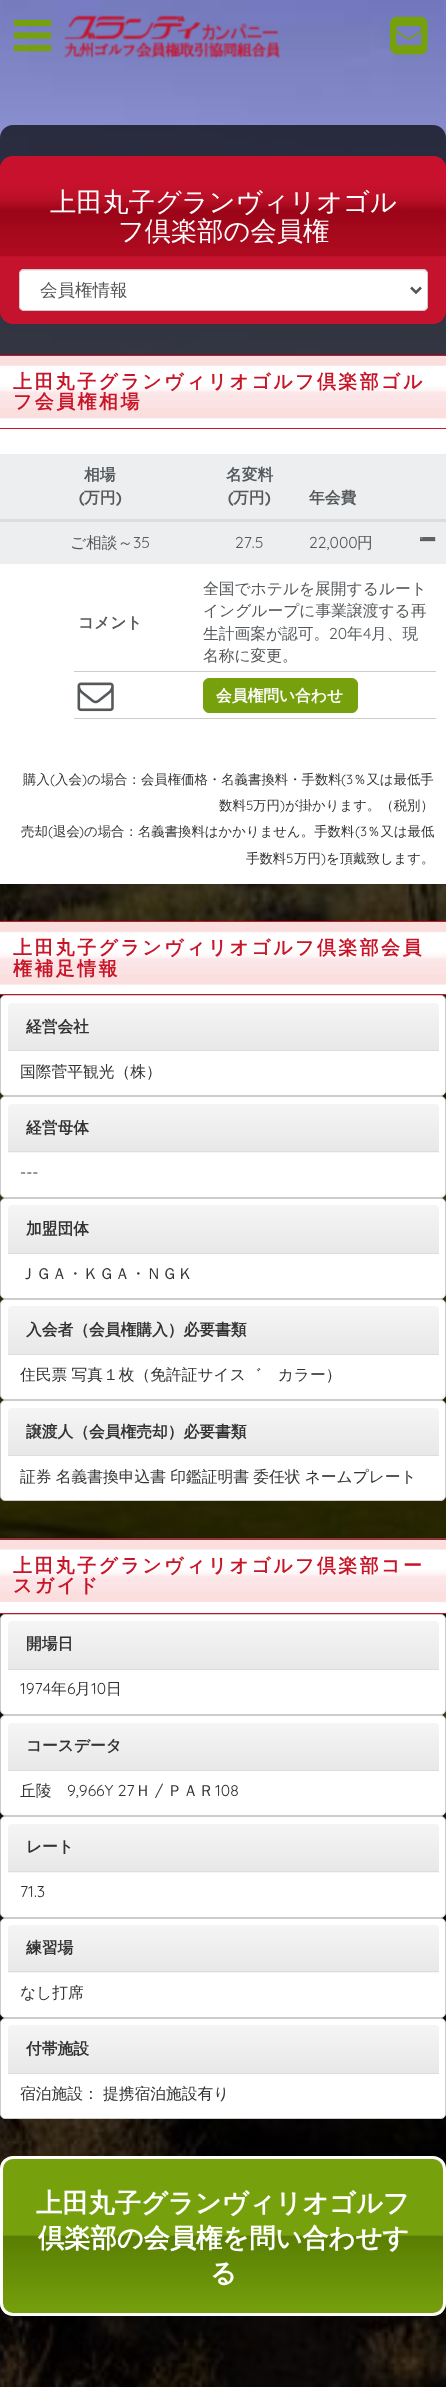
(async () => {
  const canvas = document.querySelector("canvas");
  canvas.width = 446;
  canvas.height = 2387;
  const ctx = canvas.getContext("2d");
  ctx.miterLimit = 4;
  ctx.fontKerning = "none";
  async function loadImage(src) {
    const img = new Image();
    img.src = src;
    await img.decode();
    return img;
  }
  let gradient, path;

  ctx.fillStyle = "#ffffff";
  ctx.fillRect(0, 0, 446, 2387);
  ctx.drawImage(await loadImage("img/1.png"), 0, 0, 446, 2387);
  ctx.drawImage(await loadImage("img/2.png"), 13, 19, 39, 33);
  ctx.drawImage(await loadImage("img/3.png"), 64, 15, 217, 44);
  ctx.drawImage(await loadImage("img/4.png"), 390, 16, 38, 39);
  ctx.fillStyle = "#c6132d";
  ctx.beginPath();
  ctx.roundRect(0, 156, 446, 168, 13);
  ctx.fill();
  ctx.drawImage(await loadImage("img/5.png"), 0, 156, 446, 101);
  ctx.fillStyle = "#ffffff";
  ctx.beginPath();
  ctx.roundRect(19, 269, 409, 42, 5);
  ctx.fill();
  ctx.fillStyle = "#ececec";
  path = new Path2D("M24 271H422C425 271 426 273 426 275V274C426 272 424 270 422 270H24C22 270 20 272 20 274V275C20 273 22 271 24 271Z");
  ctx.fill(path);
  ctx.beginPath();
  ctx.roundRect(19.5, 269.5, 408, 41, 4.5);
  ctx.strokeStyle = "#cccccc";
  ctx.stroke();
  path = new Path2D("M411 287.5L416 292.5L421 287.5");
  ctx.strokeStyle = "#555555";
  ctx.lineWidth = 2.5;
  ctx.stroke(path);
  ctx.drawImage(await loadImage("img/6.png"), 0, 356, 446, 72);
  for (const [x, y, w, h, color] of [
    [0, 355, 446, 1, "#c81528"],
    [0, 428, 446, 1, "#c81528"],
    [0, 429, 446, 25, "#ffffff"],
    [0, 564, 446, 320, "#ffffff"],
    [0, 454, 446, 110, "#eceeef"],
    [0, 519, 446, 3, "#dddddd"],
    [74, 671, 362, 1, "#cccccc"],
    [74, 718, 362, 1, "#cccccc"],
  ]) {
    ctx.fillStyle = color;
    ctx.fillRect(x, y, w, h);
  }
  ctx.drawImage(await loadImage("img/7.png"), 77, 682, 37, 30);
  ctx.fillStyle = "#76a10d";
  ctx.beginPath();
  ctx.roundRect(203.5, 678.5, 154, 34, 5.5);
  ctx.fill();
  ctx.strokeStyle = "#76a10d";
  ctx.lineWidth = 1;
  ctx.stroke();
  ctx.drawImage(await loadImage("img/8.png"), 0, 922, 446, 72);
  ctx.fillStyle = "#c81528";
  ctx.fillRect(0, 921, 446, 1);
  ctx.fillRect(0, 994, 446, 1);
  ctx.fillStyle = "#ffffff";
  ctx.beginPath();
  ctx.roundRect(0.5, 995.5, 445, 100, 4.5);
  ctx.fill();
  ctx.strokeStyle = "#cccccc";
  ctx.stroke();
  gradient = ctx.createLinearGradient(223, 1003, 223, 1050);
  gradient.addColorStop(0, "#f5f5f5");
  gradient.addColorStop(1, "#e8e8e8");
  ctx.fillStyle = gradient;
  ctx.beginPath();
  ctx.roundRect(8, 1003, 431, 47, [4, 4, 0, 0]);
  ctx.fill();
  ctx.fillStyle = "#dddddd";
  ctx.fillRect(8, 1050, 431, 1);
  ctx.fillStyle = "#ffffff";
  ctx.beginPath();
  ctx.roundRect(0.5, 1096.5, 445, 101, 4.5);
  ctx.fill();
  ctx.stroke();
  ctx.fillStyle = "#f5f5f5";
  ctx.beginPath();
  ctx.roundRect(8, 1104, 431, 49, [4, 4, 0, 0]);
  ctx.fill();
  gradient = ctx.createLinearGradient(223, 1104, 223, 1151);
  gradient.addColorStop(0, "#f5f5f5");
  gradient.addColorStop(1, "#e8e8e8");
  ctx.fillStyle = gradient;
  ctx.beginPath();
  ctx.roundRect(8, 1104, 431, 47, [4, 4, 0, 0]);
  ctx.fill();
  ctx.fillStyle = "#dddddd";
  ctx.fillRect(8, 1151, 431, 1);
  ctx.fillStyle = "#ffffff";
  ctx.beginPath();
  ctx.roundRect(0.5, 1198.5, 445, 100, 4.5);
  ctx.fill();
  ctx.stroke();
  gradient = ctx.createLinearGradient(223, 1205, 223, 1253);
  gradient.addColorStop(0, "#f5f5f5");
  gradient.addColorStop(1, "#e8e8e8");
  ctx.fillStyle = gradient;
  ctx.beginPath();
  ctx.roundRect(8, 1205, 431, 48, [4, 4, 0, 0]);
  ctx.fill();
  ctx.fillStyle = "#dddddd";
  ctx.fillRect(8, 1253, 431, 1);
  ctx.fillStyle = "#ffffff";
  ctx.beginPath();
  ctx.roundRect(0.5, 1299.5, 445, 100, 4.5);
  ctx.fill();
  ctx.stroke();
  gradient = ctx.createLinearGradient(223, 1306, 223, 1354);
  gradient.addColorStop(0, "#f5f5f5");
  gradient.addColorStop(1, "#e8e8e8");
  ctx.fillStyle = gradient;
  ctx.beginPath();
  ctx.roundRect(8, 1306, 431, 48, [4, 4, 0, 0]);
  ctx.fill();
  ctx.fillStyle = "#dddddd";
  ctx.fillRect(8, 1354, 431, 1);
  ctx.fillStyle = "#ffffff";
  ctx.beginPath();
  ctx.roundRect(0.5, 1400.5, 445, 100, 4.5);
  ctx.fill();
  ctx.stroke();
  gradient = ctx.createLinearGradient(223, 1408, 223, 1455);
  gradient.addColorStop(0, "#f5f5f5");
  gradient.addColorStop(1, "#e8e8e8");
  ctx.fillStyle = gradient;
  ctx.beginPath();
  ctx.roundRect(8, 1408, 431, 47, [4, 4, 0, 0]);
  ctx.fill();
  ctx.fillStyle = "#dddddd";
  ctx.fillRect(8, 1455, 431, 1);
  ctx.drawImage(await loadImage("img/9.png"), 0, 1538, 446, 75);
  ctx.fillStyle = "#c81528";
  ctx.fillRect(0, 1539, 446, 1);
  ctx.fillRect(0, 1613, 446, 1);
  ctx.fillStyle = "#ffffff";
  ctx.beginPath();
  ctx.roundRect(0.5, 1614.5, 445, 100, 4.5);
  ctx.fill();
  ctx.stroke();
  gradient = ctx.createLinearGradient(223, 1621, 223, 1669);
  gradient.addColorStop(0, "#f5f5f5");
  gradient.addColorStop(1, "#e8e8e8");
  ctx.fillStyle = gradient;
  ctx.beginPath();
  ctx.roundRect(8, 1621, 431, 48, [4, 4, 0, 0]);
  ctx.fill();
  ctx.fillStyle = "#dddddd";
  ctx.fillRect(8, 1669, 431, 1);
  ctx.fillStyle = "#ffffff";
  ctx.beginPath();
  ctx.roundRect(0.5, 1715.5, 445, 100, 4.5);
  ctx.fill();
  ctx.stroke();
  gradient = ctx.createLinearGradient(223, 1723, 223, 1770);
  gradient.addColorStop(0, "#f5f5f5");
  gradient.addColorStop(1, "#e8e8e8");
  ctx.fillStyle = gradient;
  ctx.beginPath();
  ctx.roundRect(8, 1723, 431, 47, [4, 4, 0, 0]);
  ctx.fill();
  ctx.fillStyle = "#dddddd";
  ctx.fillRect(8, 1770, 431, 1);
  ctx.fillStyle = "#ffffff";
  ctx.beginPath();
  ctx.roundRect(0.5, 1816.5, 445, 101, 4.5);
  ctx.fill();
  ctx.stroke();
  ctx.fillStyle = "#f5f5f5";
  ctx.beginPath();
  ctx.roundRect(8, 1824, 431, 49, [4, 4, 0, 0]);
  ctx.fill();
  gradient = ctx.createLinearGradient(223, 1824, 223, 1871);
  gradient.addColorStop(0, "#f5f5f5");
  gradient.addColorStop(1, "#e8e8e8");
  ctx.fillStyle = gradient;
  ctx.beginPath();
  ctx.roundRect(8, 1824, 431, 47, [4, 4, 0, 0]);
  ctx.fill();
  ctx.fillStyle = "#dddddd";
  ctx.fillRect(8, 1871, 431, 1);
  ctx.fillStyle = "#ffffff";
  ctx.beginPath();
  ctx.roundRect(0.5, 1918.5, 445, 99, 4.5);
  ctx.fill();
  ctx.stroke();
  ctx.fillStyle = "#f5f5f5";
  ctx.beginPath();
  ctx.roundRect(8, 1925, 431, 48, [4, 4, 0, 0]);
  ctx.fill();
  gradient = ctx.createLinearGradient(223, 1925, 223, 1971);
  gradient.addColorStop(0, "#f5f5f5");
  gradient.addColorStop(1, "#e8e8e8");
  ctx.fillStyle = gradient;
  ctx.beginPath();
  ctx.roundRect(8, 1925, 431, 46, [4, 4, 0, 0]);
  ctx.fill();
  ctx.fillStyle = "#dddddd";
  ctx.fillRect(8, 1971, 431, 1);
  ctx.fillStyle = "#ffffff";
  ctx.beginPath();
  ctx.roundRect(0.5, 2018.5, 445, 100, 4.5);
  ctx.fill();
  ctx.stroke();
  gradient = ctx.createLinearGradient(223, 2025, 223, 2073);
  gradient.addColorStop(0, "#f5f5f5");
  gradient.addColorStop(1, "#e8e8e8");
  ctx.fillStyle = gradient;
  ctx.beginPath();
  ctx.roundRect(8, 2025, 431, 48, [4, 4, 0, 0]);
  ctx.fill();
  ctx.fillStyle = "#dddddd";
  ctx.fillRect(8, 2073, 431, 1);
  ctx.save();
  ctx.beginPath();
  ctx.roundRect(0, 2156, 446, 160, 13);
  ctx.clip();
  gradient = ctx.createLinearGradient(2.5, 2159, 2.5, 2314);
  gradient.addColorStop(0, "#76a10d");
  gradient.addColorStop(0.49, "#76a10d");
  gradient.addColorStop(0.5, "#5a7e02");
  gradient.addColorStop(1, "#76a10d");
  ctx.fillStyle = gradient;
  ctx.fillRect(0, 2159, 446, 155);
  ctx.restore();
  ctx.beginPath();
  ctx.roundRect(1.5, 2157.5, 443, 157, 11.5);
  ctx.strokeStyle = "#ffffff";
  ctx.lineWidth = 3;
  ctx.stroke();
  ctx.font = "500 26.25px WenQuanYi Zen Hei";
  ctx.fillStyle = "#ffffff";
  ctx.fillText("上田丸子グランヴィリオゴル", 50, 211);
  ctx.fillText("フ倶楽部の会員権", 118, 240);
  ctx.font = "500 17.5px WenQuanYi Zen Hei";
  ctx.fillStyle = "#555555";
  ctx.fillText("会員権情報", 40, 296);
  ctx.letterSpacing = "2.5px";
  ctx.font = "bold 18.9px WenQuanYi Zen Hei";
  ctx.fillStyle = "#c81528";
  ctx.fillText("上田丸子グランヴィリオゴルフ倶楽部ゴル", 13, 388);
  ctx.fillText("フ会員権相場", 13, 408);
  ctx.letterSpacing = "0px";
  ctx.font = "bold 15.75px WenQuanYi Zen Hei";
  ctx.fillStyle = "#55595c";
  ctx.fillText("相場", 84, 480);
  ctx.font = "bold 15.75px Quicksand";
  ctx.fillText("(", 79, 503);
  ctx.font = "bold 15.75px WenQuanYi Zen Hei";
  ctx.fillText("万円", 84, 503);
  ctx.font = "bold 15.75px Quicksand";
  ctx.fillText(")", 116, 503);
  ctx.font = "bold 15.75px WenQuanYi Zen Hei";
  ctx.fillText("名変料", 226, 480);
  ctx.font = "bold 15.75px Quicksand";
  ctx.fillText("(", 228, 503);
  ctx.font = "bold 15.75px WenQuanYi Zen Hei";
  ctx.fillText("万円", 233, 503);
  ctx.font = "bold 15.75px Quicksand";
  ctx.fillText(")", 265, 503);
  ctx.font = "bold 15.75px WenQuanYi Zen Hei";
  ctx.fillText("年会費", 309, 503);
  ctx.font = "500 15.75px WenQuanYi Zen Hei";
  ctx.fillText("ご相談～", 70, 548);
  ctx.font = "15.75px Quicksand";
  for (const [text, x, y] of [
    ["35", 133, 548],
    ["27.5", 235, 548],
    ["22,000", 309, 548],
  ]) {
    ctx.fillText(text, x, y);
  }
  ctx.font = "500 15.75px WenQuanYi Zen Hei";
  ctx.fillText("円", 357, 548);
  ctx.font = "14px Noto Color Emoji";
  ctx.fillStyle = "#8a6d3b";
  ctx.fillText("➖", 419, 544);
  ctx.font = "bold 15.75px WenQuanYi Zen Hei";
  ctx.fillStyle = "#55595c";
  ctx.fillText("コメント", 78, 628);
  ctx.font = "500 15.75px WenQuanYi Zen Hei";
  for (const [text, x, y] of [
    ["全国でホテルを展開するルート", 203, 594],
    ["イングループに事業譲渡する再", 203, 616],
    ["生計画案が認可。", 203, 639],
  ]) {
    ctx.fillText(text, x, y);
  }
  ctx.font = "15.75px Quicksand";
  ctx.fillText("20", 329, 639);
  ctx.font = "500 15.75px WenQuanYi Zen Hei";
  ctx.fillText("年", 347, 639);
  ctx.font = "15.75px Quicksand";
  ctx.fillText("4", 363, 639);
  ctx.font = "500 15.75px WenQuanYi Zen Hei";
  ctx.fillText("月、現", 371, 639);
  ctx.fillText("名称に変更。", 203, 661);
  ctx.font = "bold 15.75px WenQuanYi Zen Hei";
  ctx.fillStyle = "#ffffff";
  ctx.fillText("会員権問い合わせ", 216, 701);
  ctx.font = "500 13.4px WenQuanYi Zen Hei";
  ctx.fillStyle = "#333333";
  ctx.fillText("購入", 23, 784);
  ctx.font = "13.4px Quicksand";
  ctx.fillText("(", 50, 784);
  ctx.font = "500 13.4px WenQuanYi Zen Hei";
  ctx.fillText("入会", 55, 784);
  ctx.font = "13.4px Quicksand";
  ctx.fillText(")", 82, 784);
  ctx.font = "500 13.4px WenQuanYi Zen Hei";
  ctx.fillText("の場合：会員権価格・名義書換料・手数料", 87, 784);
  ctx.font = "13.4px Quicksand";
  ctx.fillText("(3", 341, 784);
  ctx.font = "500 13.4px WenQuanYi Zen Hei";
  ctx.fillText("％又は最低手", 353, 784);
  ctx.fillText("数料", 219, 810);
  ctx.font = "13.4px Quicksand";
  ctx.fillText("5", 246, 810);
  ctx.font = "500 13.4px WenQuanYi Zen Hei";
  ctx.fillText("万円", 253, 810);
  ctx.font = "13.4px Quicksand";
  ctx.fillText(")", 280, 810);
  ctx.font = "500 13.4px WenQuanYi Zen Hei";
  ctx.fillText("が掛かります。（税別）", 285, 810);
  ctx.fillText("売却", 21, 836);
  ctx.font = "13.4px Quicksand";
  ctx.fillText("(", 48, 836);
  ctx.font = "500 13.4px WenQuanYi Zen Hei";
  ctx.fillText("退会", 53, 836);
  ctx.font = "13.4px Quicksand";
  ctx.fillText(")", 79, 836);
  ctx.font = "500 13.4px WenQuanYi Zen Hei";
  ctx.fillText("の場合：名義書換料はかかりません。手数料", 84, 836);
  ctx.font = "13.4px Quicksand";
  ctx.fillText("(3", 355, 836);
  ctx.font = "500 13.4px WenQuanYi Zen Hei";
  ctx.fillText("％又は最低", 367, 836);
  ctx.fillText("手数料", 246, 863);
  ctx.font = "13.4px Quicksand";
  ctx.fillText("5", 286, 863);
  ctx.font = "500 13.4px WenQuanYi Zen Hei";
  ctx.fillText("万円", 294, 863);
  ctx.font = "13.4px Quicksand";
  ctx.fillText(")", 321, 863);
  ctx.font = "500 13.4px WenQuanYi Zen Hei";
  ctx.fillText("を頂戴致します。", 326, 863);
  ctx.letterSpacing = "2.5px";
  ctx.font = "bold 18.9px WenQuanYi Zen Hei";
  ctx.fillStyle = "#c81528";
  ctx.fillText("上田丸子グランヴィリオゴルフ倶楽部会員", 13, 954);
  ctx.fillText("権補足情報", 13, 975);
  ctx.letterSpacing = "0px";
  ctx.font = "bold 15.75px WenQuanYi Zen Hei";
  ctx.fillStyle = "#333333";
  ctx.fillText("経営会社", 26, 1032);
  ctx.font = "500 15.75px WenQuanYi Zen Hei";
  ctx.fillText("国際菅平観光（株）", 20, 1077);
  ctx.font = "bold 15.75px WenQuanYi Zen Hei";
  ctx.fillText("経営母体", 26, 1133);
  ctx.font = "15.75px Quicksand";
  ctx.fillText("---", 20, 1178);
  ctx.font = "bold 15.75px WenQuanYi Zen Hei";
  ctx.fillText("加盟団体", 26, 1234);
  ctx.font = "500 15.75px WenQuanYi Zen Hei";
  ctx.fillText("ＪＧＡ・ＫＧＡ・ＮＧＫ", 20, 1279);
  ctx.font = "bold 15.75px WenQuanYi Zen Hei";
  ctx.fillText("入会者（会員権購入）必要書類", 26, 1335);
  ctx.wordSpacing = "-0.5px";
  ctx.font = "500 15.75px WenQuanYi Zen Hei";
  ctx.fillText("住民票 写真１枚（免許証サイス゛　カラー）", 20, 1380);
  ctx.wordSpacing = "0px";
  ctx.font = "bold 15.75px WenQuanYi Zen Hei";
  ctx.fillText("譲渡人（会員権売却）必要書類", 26, 1437);
  ctx.wordSpacing = "-0.5px";
  ctx.font = "500 15.75px WenQuanYi Zen Hei";
  ctx.fillText("証券 名義書換申込書 印鑑証明書 委任状 ネームプレート", 20, 1482);
  ctx.letterSpacing = "2.5px";
  ctx.wordSpacing = "0px";
  ctx.font = "bold 18.9px WenQuanYi Zen Hei";
  ctx.fillStyle = "#c81528";
  ctx.fillText("上田丸子グランヴィリオゴルフ倶楽部コー", 13, 1572);
  ctx.fillText("スガイド", 13, 1592);
  ctx.letterSpacing = "0px";
  ctx.font = "bold 15.75px WenQuanYi Zen Hei";
  ctx.fillStyle = "#333333";
  ctx.fillText("開場日", 26, 1649);
  ctx.font = "15.75px Quicksand";
  ctx.fillText("1974", 20, 1694);
  ctx.font = "500 15.75px WenQuanYi Zen Hei";
  ctx.fillText("年", 51, 1694);
  ctx.font = "15.75px Quicksand";
  ctx.fillText("6", 67, 1694);
  ctx.font = "500 15.75px WenQuanYi Zen Hei";
  ctx.fillText("月", 75, 1694);
  ctx.font = "15.75px Quicksand";
  ctx.fillText("10", 91, 1694);
  ctx.font = "500 15.75px WenQuanYi Zen Hei";
  ctx.fillText("日", 106, 1694);
  ctx.font = "bold 15.75px WenQuanYi Zen Hei";
  ctx.fillText("コースデータ", 26, 1751);
  ctx.font = "500 15.75px WenQuanYi Zen Hei";
  ctx.fillText("丘陵", 20, 1796);
  ctx.font = "15.75px Quicksand";
  ctx.fillText("9,966Y 27", 67, 1796);
  ctx.font = "500 15.75px WenQuanYi Zen Hei";
  ctx.fillText("Ｈ", 135, 1796);
  ctx.font = "15.75px Quicksand";
  ctx.fillText("/", 155, 1796);
  ctx.font = "500 15.75px WenQuanYi Zen Hei";
  ctx.fillText("ＰＡＲ", 167, 1796);
  ctx.font = "15.75px Quicksand";
  ctx.fillText("108", 215, 1796);
  ctx.font = "bold 15.75px WenQuanYi Zen Hei";
  ctx.fillText("レート", 26, 1852);
  ctx.font = "15.75px Quicksand";
  ctx.fillText("71.3", 20, 1897);
  ctx.font = "bold 15.75px WenQuanYi Zen Hei";
  ctx.fillText("練習場", 26, 1953);
  ctx.font = "500 15.75px WenQuanYi Zen Hei";
  ctx.fillText("なし打席", 20, 1998);
  ctx.font = "bold 15.75px WenQuanYi Zen Hei";
  ctx.fillText("付帯施設", 26, 2054);
  ctx.wordSpacing = "-0.5px";
  ctx.font = "500 15.75px WenQuanYi Zen Hei";
  ctx.fillText("宿泊施設： 提携宿泊施設有り", 20, 2099);
  ctx.wordSpacing = "0px";
  ctx.font = "bold 26.25px WenQuanYi Zen Hei";
  ctx.fillStyle = "#ffffff";
  for (const [text, x, y] of [
    ["上田丸子グランヴィリオゴルフ", 36, 2212],
    ["倶楽部の会員権を問い合わせす", 38, 2247],
    ["る", 210, 2282],
  ]) {
    ctx.fillText(text, x, y);
  }
})();
